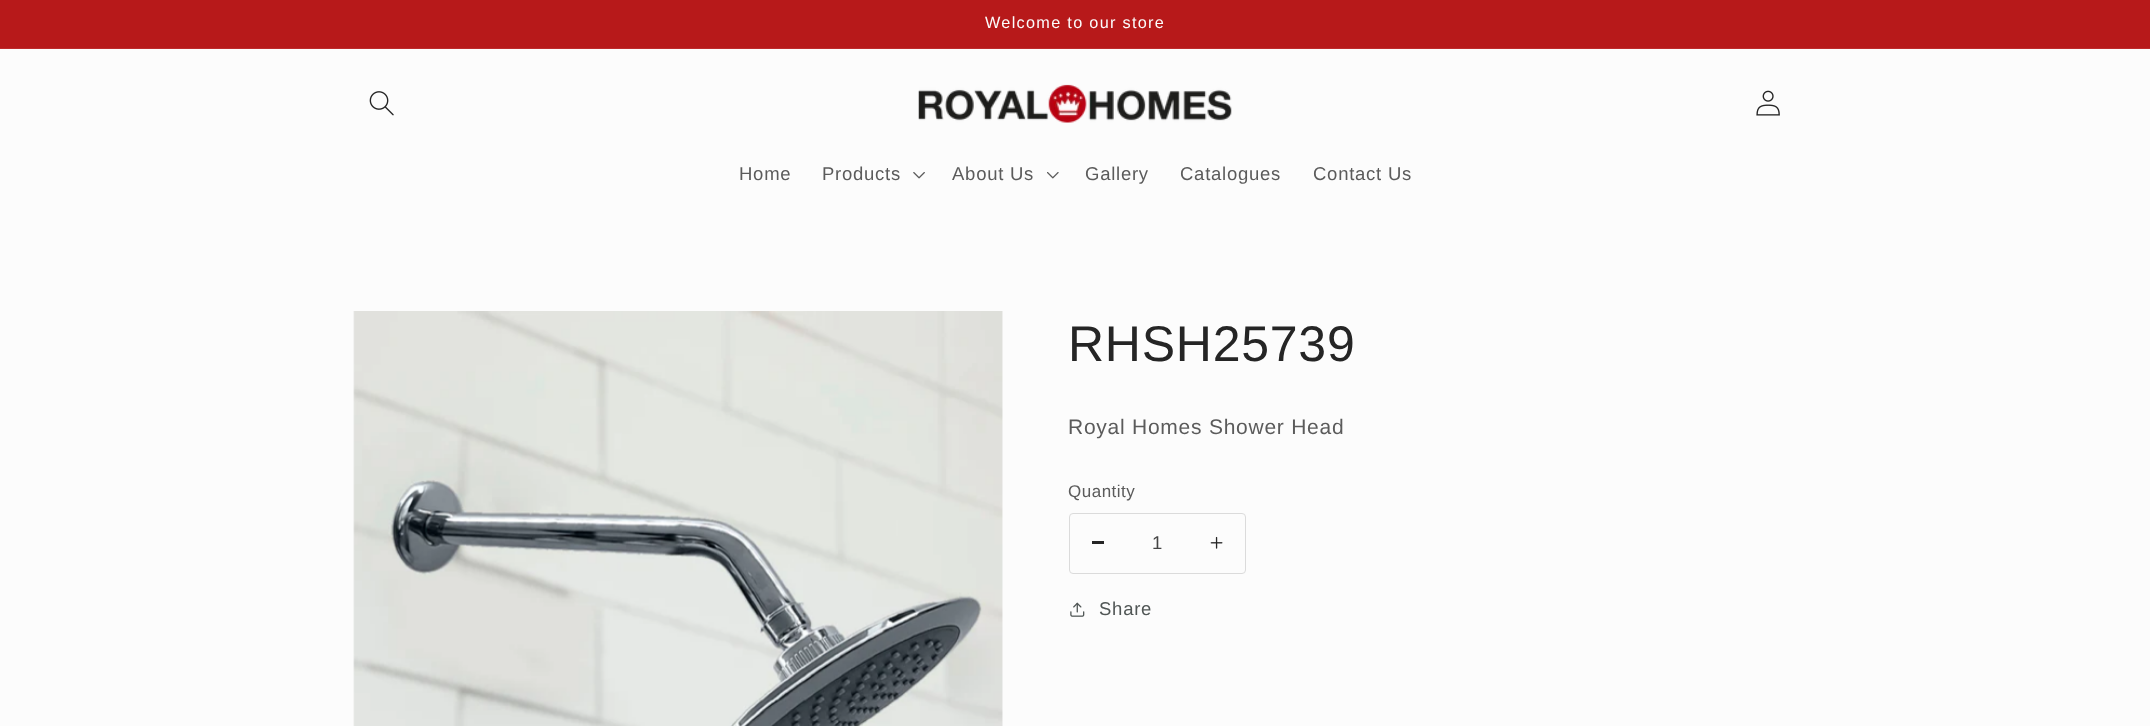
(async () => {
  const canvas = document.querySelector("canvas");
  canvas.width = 2150;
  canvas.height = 726;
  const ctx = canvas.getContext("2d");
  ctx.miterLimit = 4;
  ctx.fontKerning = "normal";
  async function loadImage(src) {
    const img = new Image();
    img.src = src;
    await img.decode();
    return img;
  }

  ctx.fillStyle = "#fcfcfc";
  ctx.fillRect(0, 0, 2150, 726);
  ctx.fillStyle = "#b7191a";
  ctx.fillRect(0, 0, 2150, 48);
  ctx.fillStyle = "#bd2b2c";
  ctx.fillRect(0, 48, 2150, 1);
  ctx.drawImage(await loadImage("img/1.png"), 369, 91, 25, 25);
  ctx.drawImage(await loadImage("img/2.png"), 918, 84, 314, 39);
  ctx.drawImage(await loadImage("img/3.png"), 1756, 90, 24, 26);
  ctx.drawImage(await loadImage("img/4.png"), 913, 172, 12, 7);
  ctx.drawImage(await loadImage("img/5.png"), 1047, 172, 12, 7);
  ctx.drawImage(await loadImage("img/6.png"), 353, 311, 650, 415);
  ctx.fillStyle = "#252525";
  ctx.fillRect(1092, 541, 12, 3);
  ctx.drawImage(await loadImage("img/7.png"), 1210, 536, 13, 13);
  ctx.beginPath();
  ctx.roundRect(1069.5, 513.5, 176, 60, 3.5);
  ctx.strokeStyle = "#dbdbdb";
  ctx.stroke();
  ctx.drawImage(await loadImage("img/8.png"), 1070, 602, 15, 15);
  ctx.letterSpacing = "1.3px";
  ctx.font = "16.25px Liberation Sans";
  ctx.fillStyle = "#fcfcfc";
  ctx.fillText("Welcome to our store", 985, 28);
  ctx.letterSpacing = "0.75px";
  ctx.font = "18.5px Liberation Sans";
  ctx.fillStyle = "#5b5b5b";
  for (const [text, x, y] of [
    ["Home", 739, 180],
    ["Products", 822, 180],
    ["About Us", 952, 180],
    ["Gallery", 1085, 180],
    ["Catalogues", 1180, 180],
    ["Contact Us", 1313, 180],
  ]) {
    ctx.fillText(text, x, y);
  }
  ctx.font = "50px Liberation Sans";
  ctx.fillStyle = "#252525";
  ctx.fillText("RHSH25739", 1068, 361);
  ctx.font = "21px Liberation Sans";
  ctx.fillStyle = "#5b5b5b";
  ctx.fillText("Royal Homes Shower Head", 1068, 434);
  ctx.letterSpacing = "0.5px";
  ctx.font = "17px Liberation Sans";
  ctx.fillText("Quantity", 1068, 497);
  ctx.letterSpacing = "0px";
  ctx.font = "18.5px Liberation Sans";
  ctx.fillStyle = "#454545";
  ctx.fillText("1", 1152, 549);
  ctx.letterSpacing = "0.75px";
  ctx.fillStyle = "#505655";
  ctx.fillText("Share", 1099, 615);
})();
